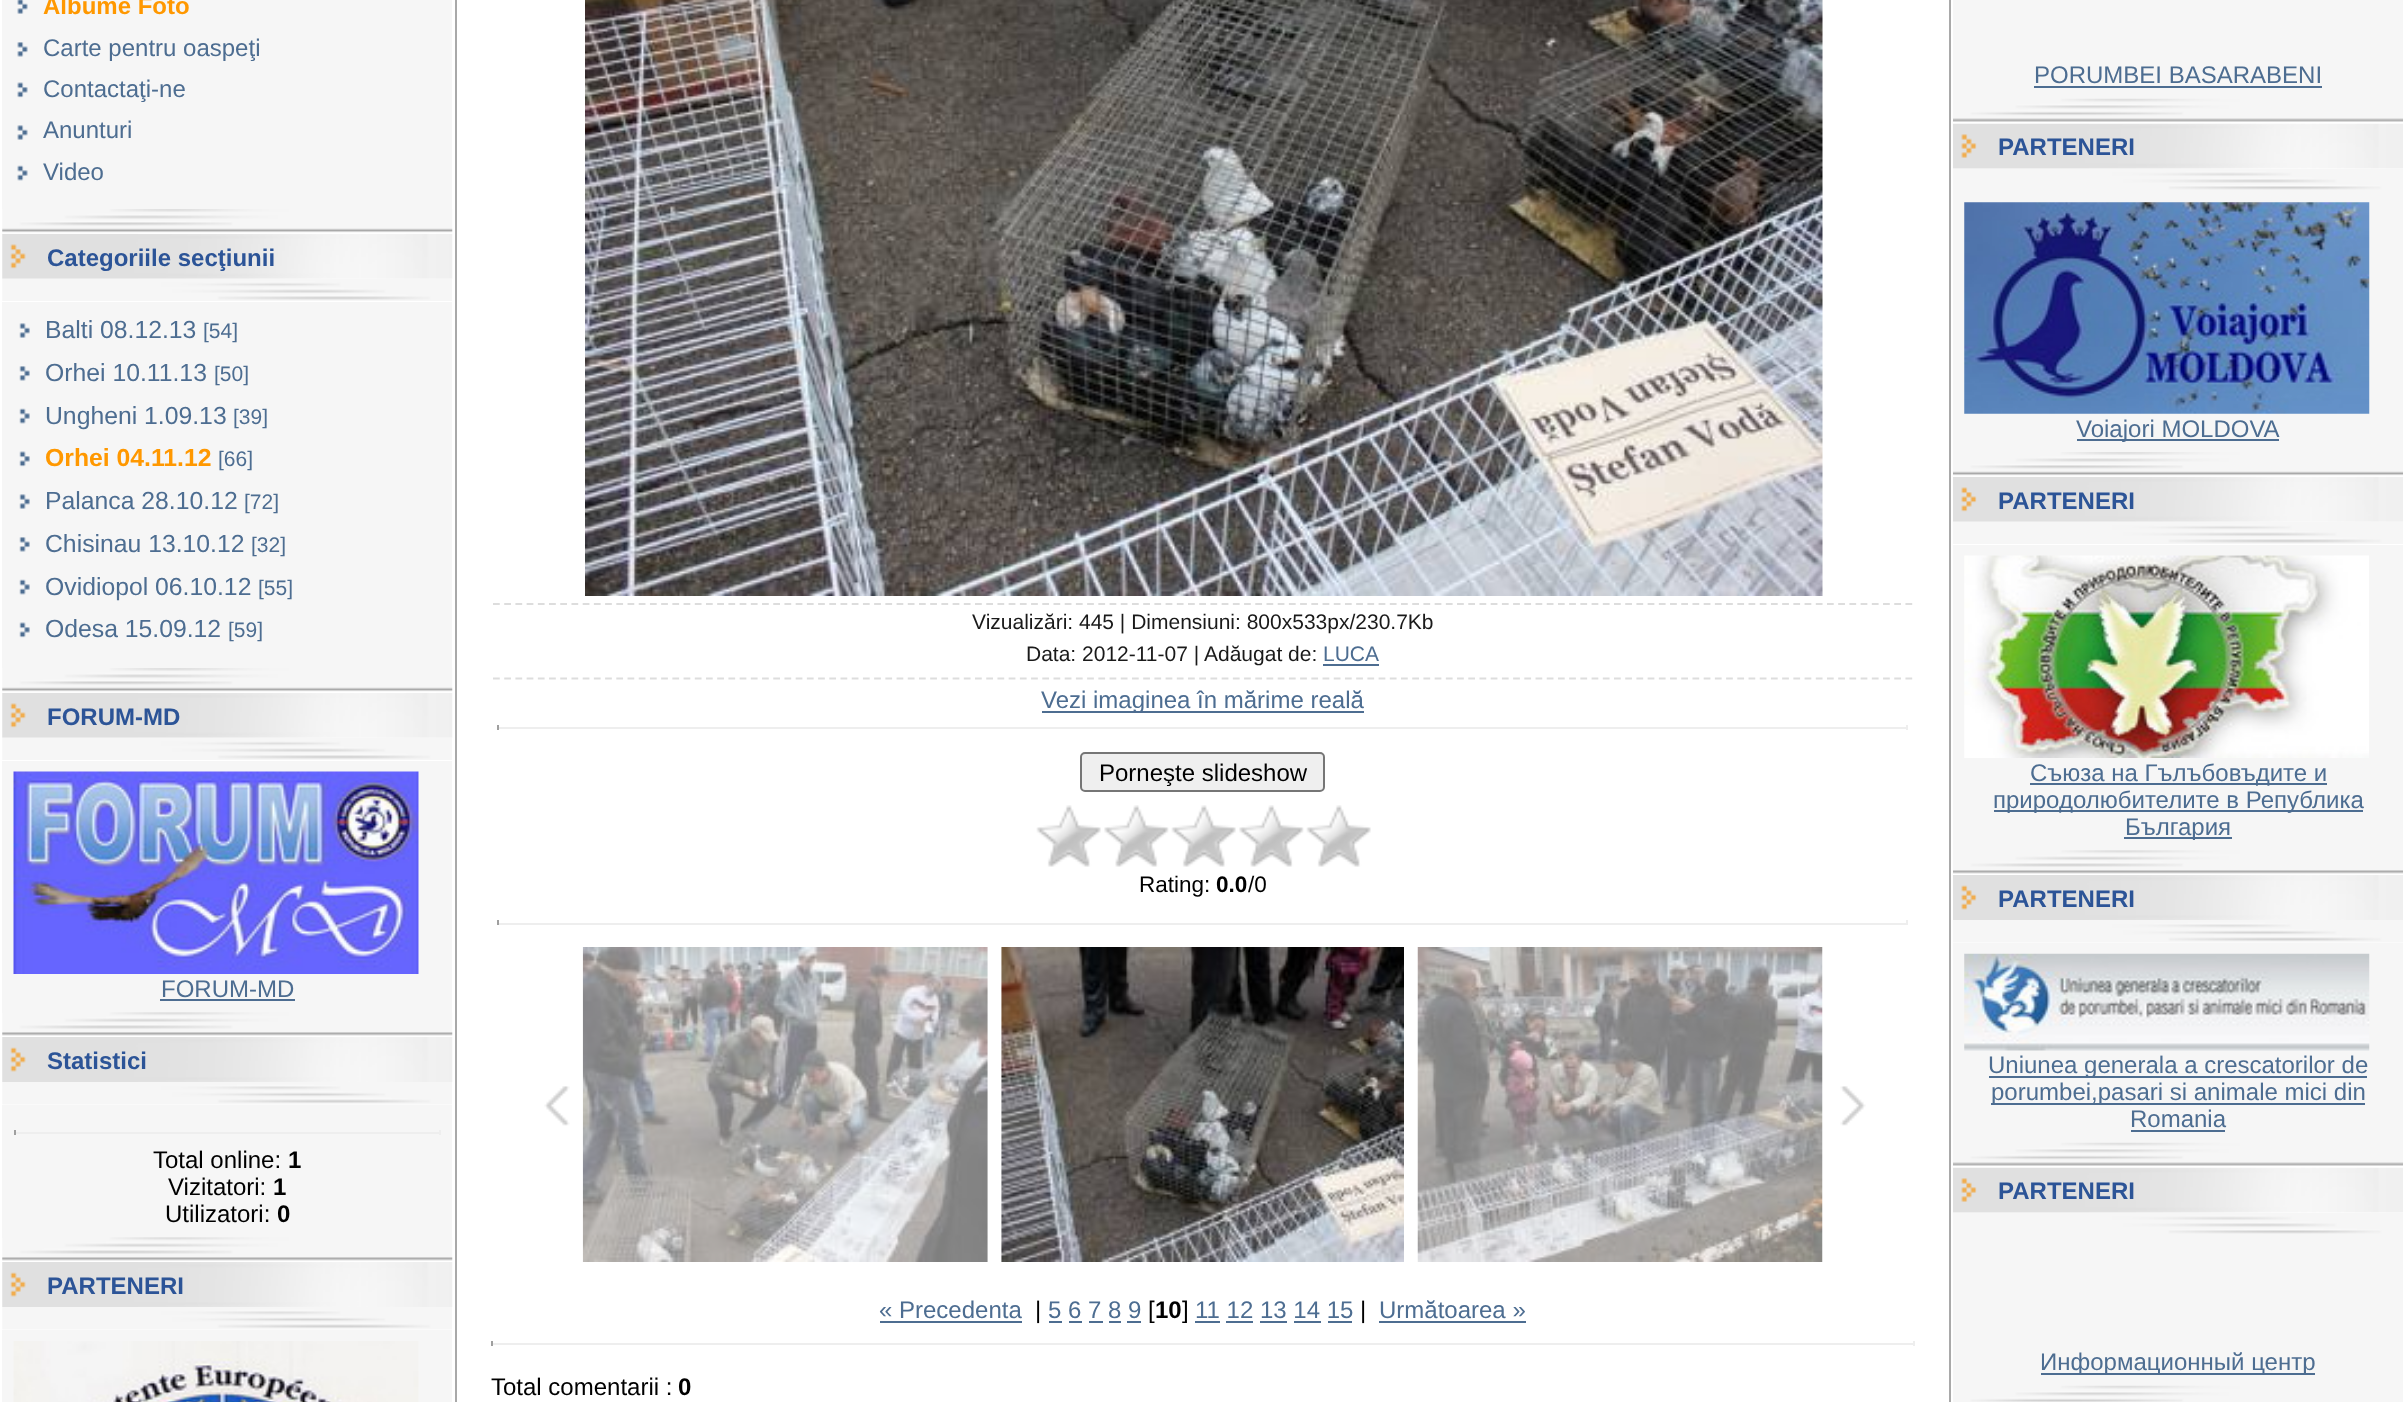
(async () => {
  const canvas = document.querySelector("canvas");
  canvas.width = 2405;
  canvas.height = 1402;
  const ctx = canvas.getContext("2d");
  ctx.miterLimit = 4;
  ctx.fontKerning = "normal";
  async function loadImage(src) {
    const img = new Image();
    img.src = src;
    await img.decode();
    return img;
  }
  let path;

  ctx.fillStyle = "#ffffff";
  ctx.fillRect(0, 0, 2405, 1402);
  ctx.fillStyle = "#f6f6f6";
  ctx.fillRect(2, 0, 450, 209);
  ctx.drawImage(await loadImage("img/1.png"), 17, 0, 11, 14);
  ctx.drawImage(await loadImage("img/2.png"), 17, 42, 11, 15);
  ctx.drawImage(await loadImage("img/3.png"), 17, 82, 11, 16);
  ctx.drawImage(await loadImage("img/4.png"), 17, 125, 11, 15);
  ctx.drawImage(await loadImage("img/5.png"), 17, 165, 11, 16);
  ctx.drawImage(await loadImage("img/7.png"), 2, 233, 451, 46);
  ctx.drawImage(await loadImage("img/6.png"), 2, 209, 451, 25);
  ctx.drawImage(await loadImage("img/8.png"), 2, 278, 450, 23);
  ctx.fillRect(2, 302, 450, 366);
  ctx.drawImage(await loadImage("img/9.png"), 19, 323, 11, 15);
  ctx.drawImage(await loadImage("img/10.png"), 19, 366, 11, 15);
  ctx.drawImage(await loadImage("img/11.png"), 19, 408, 11, 16);
  ctx.drawImage(await loadImage("img/12.png"), 19, 451, 11, 16);
  ctx.drawImage(await loadImage("img/9.png"), 19, 494, 11, 15);
  ctx.drawImage(await loadImage("img/13.png"), 19, 537, 11, 15);
  ctx.drawImage(await loadImage("img/11.png"), 19, 579, 11, 16);
  ctx.drawImage(await loadImage("img/12.png"), 19, 622, 11, 16);
  ctx.drawImage(await loadImage("img/7.png"), 2, 692, 451, 46);
  ctx.drawImage(await loadImage("img/6.png"), 2, 668, 451, 25);
  ctx.drawImage(await loadImage("img/8.png"), 2, 737, 450, 23);
  ctx.fillRect(2, 761, 450, 252);
  ctx.drawImage(await loadImage("img/14.png"), 13, 771, 406, 203);
  ctx.fillStyle = "#4d6d91";
  ctx.fillRect(160, 999, 135, 2);
  ctx.drawImage(await loadImage("img/15.png"), 2, 1012, 451, 24);
  ctx.drawImage(await loadImage("img/16.png"), 2, 1037, 451, 45);
  ctx.drawImage(await loadImage("img/17.png"), 2, 1082, 450, 23);
  for (const [x, y, w, h, color] of [
    [2, 1105, 450, 133, "#f6f6f6"],
    [439, 1130, 2, 5, "#eeeeee"],
    [14, 1132, 427, 2, "#eeeeee"],
    [14, 1130, 2, 5, "#9f9f9f"],
  ]) {
    ctx.fillStyle = color;
    ctx.fillRect(x, y, w, h);
  }
  ctx.drawImage(await loadImage("img/15.png"), 2, 1237, 451, 24);
  ctx.drawImage(await loadImage("img/16.png"), 2, 1262, 451, 45);
  ctx.drawImage(await loadImage("img/17.png"), 2, 1307, 450, 23);
  ctx.fillStyle = "#f6f6f6";
  ctx.fillRect(2, 1330, 450, 72);
  ctx.drawImage(await loadImage("img/18.png"), 13, 1341, 406, 61);
  ctx.fillStyle = "#a9a9a9";
  ctx.fillRect(1949, 0, 2, 1402);
  ctx.fillRect(455, 0, 2, 1402);
  ctx.drawImage(await loadImage("img/19.png"), 585, 0, 1238, 596);
  path = new Path2D("M493 604H1912.5");
  ctx.strokeStyle = "#dddddd";
  ctx.lineWidth = 2.2;
  ctx.setLineDash([6.75, 4.46]);
  ctx.stroke(path);
  path = new Path2D("M493 678.5H1912.5");
  ctx.stroke(path);
  for (const [x, y, w, h, color] of [
    [1323, 664, 56, 2, "#4d6d91"],
    [1042, 711, 322, 2, "#4d6d91"],
    [1906, 725, 2, 5, "#eeeeee"],
    [497, 727, 1411, 2, "#eeeeee"],
    [497, 725, 2, 5, "#9f9f9f"],
  ]) {
    ctx.fillStyle = color;
    ctx.fillRect(x, y, w, h);
  }
  ctx.fillStyle = "#efefef";
  ctx.beginPath();
  ctx.roundRect(1081, 753, 243, 38, 4);
  ctx.fill();
  ctx.strokeStyle = "#767676";
  ctx.lineWidth = 2;
  ctx.setLineDash([]);
  ctx.stroke();
  ctx.drawImage(await loadImage("img/20.png"), 1036, 805, 335, 62);
  for (const [x, y, w, h, color] of [
    [1906, 920, 2, 5, "#eeeeee"],
    [497, 923, 1411, 2, "#eeeeee"],
    [497, 920, 2, 5, "#9f9f9f"],
  ]) {
    ctx.fillStyle = color;
    ctx.fillRect(x, y, w, h);
  }
  ctx.drawImage(await loadImage("img/21.png"), 544, 1086, 26, 40);
  ctx.drawImage(await loadImage("img/22.png"), 582, 947, 406, 315);
  ctx.drawImage(await loadImage("img/23.png"), 1001, 947, 403, 315);
  ctx.drawImage(await loadImage("img/24.png"), 1417, 947, 406, 315);
  ctx.drawImage(await loadImage("img/25.png"), 1840, 1086, 26, 40);
  for (const [x, y, w, h, color] of [
    [880, 1321, 142, 2, "#4d6d91"],
    [1049, 1321, 13, 2, "#4d6d91"],
    [1195, 1321, 25, 2, "#4d6d91"],
    [1379, 1321, 147, 2, "#4d6d91"],
    [1069, 1321, 13, 2, "#4d6d91"],
    [1089, 1321, 14, 2, "#4d6d91"],
    [1109, 1321, 12, 2, "#4d6d91"],
    [1127, 1321, 14, 2, "#4d6d91"],
    [1226, 1321, 27, 2, "#4d6d91"],
    [1260, 1321, 27, 2, "#4d6d91"],
    [1294, 1321, 27, 2, "#4d6d91"],
    [1328, 1321, 24, 2, "#4d6d91"],
    [1913, 1341, 2, 5, "#eeeeee"],
    [491, 1343, 1424, 2, "#eeeeee"],
    [491, 1341, 2, 5, "#9f9f9f"],
    [1953, 0, 450, 99, "#f6f6f6"],
    [2034, 86, 288, 2, "#4d6d91"],
  ]) {
    ctx.fillStyle = color;
    ctx.fillRect(x, y, w, h);
  }
  ctx.drawImage(await loadImage("img/27.png"), 1953, 123, 450, 46);
  ctx.drawImage(await loadImage("img/26.png"), 1953, 98, 450, 26);
  ctx.drawImage(await loadImage("img/28.png"), 1953, 169, 450, 22);
  ctx.fillStyle = "#f6f6f6";
  ctx.fillRect(1953, 191, 450, 261);
  ctx.drawImage(await loadImage("img/29.png"), 1964, 202, 406, 212);
  ctx.fillStyle = "#4d6d91";
  ctx.fillRect(2077, 439, 202, 2);
  ctx.drawImage(await loadImage("img/31.png"), 1953, 476, 450, 46);
  ctx.drawImage(await loadImage("img/30.png"), 1953, 452, 450, 25);
  ctx.drawImage(await loadImage("img/32.png"), 1953, 521, 450, 23);
  ctx.fillStyle = "#f6f6f6";
  ctx.fillRect(1953, 545, 450, 306);
  ctx.drawImage(await loadImage("img/33.png"), 1964, 555, 405, 203);
  for (const [x, y, w, h, color] of [
    [2030, 783, 297, 2, "#4d6d91"],
    [1994, 810, 369, 2, "#4d6d91"],
    [2124, 837, 108, 2, "#4d6d91"],
  ]) {
    ctx.fillStyle = color;
    ctx.fillRect(x, y, w, h);
  }
  ctx.drawImage(await loadImage("img/34.png"), 1953, 850, 450, 24);
  ctx.drawImage(await loadImage("img/35.png"), 1953, 875, 450, 45);
  ctx.drawImage(await loadImage("img/36.png"), 1953, 920, 450, 23);
  ctx.fillStyle = "#f6f6f6";
  ctx.fillRect(1953, 943, 450, 200);
  ctx.drawImage(await loadImage("img/37.png"), 1964, 953, 406, 98);
  for (const [x, y, w, h, color] of [
    [1989, 1076, 378, 2, "#4d6d91"],
    [1991, 1103, 374, 2, "#4d6d91"],
    [2131, 1130, 94, 2, "#4d6d91"],
  ]) {
    ctx.fillStyle = color;
    ctx.fillRect(x, y, w, h);
  }
  ctx.drawImage(await loadImage("img/27.png"), 1953, 1167, 450, 46);
  ctx.drawImage(await loadImage("img/26.png"), 1953, 1142, 450, 26);
  ctx.drawImage(await loadImage("img/28.png"), 1953, 1213, 450, 22);
  ctx.fillStyle = "#f6f6f6";
  ctx.fillRect(1953, 1235, 450, 151);
  ctx.fillStyle = "#4d6d91";
  ctx.fillRect(2041, 1373, 274, 2);
  ctx.drawImage(await loadImage("img/38.png"), 1953, 1385, 450, 17);
  ctx.font = "bold 24px Liberation Sans";
  ctx.fillStyle = "#ff9800";
  ctx.fillText("Albume Foto", 43, 14);
  ctx.font = "24px Liberation Sans";
  ctx.fillStyle = "#4d6d91";
  for (const [text, x, y] of [
    ["Carte pentru oaspeţi", 43, 56],
    ["Contactaţi-ne", 43, 97],
    ["Anunturi", 43, 138],
    ["Video", 43, 180],
  ]) {
    ctx.fillText(text, x, y);
  }
  ctx.font = "bold 24px Liberation Sans";
  ctx.fillStyle = "#2c5497";
  ctx.fillText("Categoriile secţiunii", 47, 266);
  ctx.font = "24.75px Liberation Sans";
  ctx.fillStyle = "#4d6d91";
  ctx.fillText("Balti 08.12.13", 45, 338);
  ctx.font = "21px Liberation Sans";
  ctx.fillText("[54]", 203, 338);
  ctx.font = "24.75px Liberation Sans";
  ctx.fillText("Orhei 10.11.13", 45, 381);
  ctx.font = "21px Liberation Sans";
  ctx.fillText("[50]", 214, 381);
  ctx.font = "24.75px Liberation Sans";
  ctx.fillText("Ungheni 1.09.13", 45, 424);
  ctx.font = "21px Liberation Sans";
  ctx.fillText("[39]", 233, 424);
  ctx.font = "bold 24.75px Liberation Sans";
  ctx.fillStyle = "#ff9800";
  ctx.fillText("Orhei 04.11.12", 45, 466);
  ctx.font = "21px Liberation Sans";
  ctx.fillStyle = "#4d6d91";
  ctx.fillText("[66]", 218, 466);
  ctx.font = "24.75px Liberation Sans";
  ctx.fillText("Palanca 28.10.12", 45, 509);
  ctx.font = "21px Liberation Sans";
  ctx.fillText("[72]", 244, 509);
  ctx.font = "24.75px Liberation Sans";
  ctx.fillText("Chisinau 13.10.12", 45, 552);
  ctx.font = "21px Liberation Sans";
  ctx.fillText("[32]", 251, 552);
  ctx.font = "24.75px Liberation Sans";
  ctx.fillText("Ovidiopol 06.10.12", 45, 595);
  ctx.font = "21px Liberation Sans";
  ctx.fillText("[55]", 258, 595);
  ctx.font = "24.75px Liberation Sans";
  ctx.fillText("Odesa 15.09.12", 45, 637);
  ctx.font = "21px Liberation Sans";
  ctx.fillText("[59]", 228, 637);
  ctx.font = "bold 24px Liberation Sans";
  ctx.fillStyle = "#2c5497";
  ctx.fillText("FORUM-MD", 47, 725);
  ctx.font = "24px Liberation Sans";
  ctx.fillStyle = "#4d6d91";
  ctx.fillText("FORUM-MD", 161, 997);
  ctx.font = "bold 24px Liberation Sans";
  ctx.fillStyle = "#2c5497";
  ctx.fillText("Statistici", 47, 1069);
  ctx.font = "24px Liberation Sans";
  ctx.fillStyle = "#000000";
  ctx.fillText("Total online:", 153, 1168);
  ctx.font = "bold 24px Liberation Sans";
  ctx.fillText("1", 288, 1168);
  ctx.font = "24px Liberation Sans";
  ctx.fillText("Vizitatori:", 168, 1195);
  ctx.font = "bold 24px Liberation Sans";
  ctx.fillText("1", 273, 1195);
  ctx.font = "24px Liberation Sans";
  ctx.fillText("Utilizatori:", 165, 1222);
  ctx.font = "bold 24px Liberation Sans";
  ctx.fillText("0", 277, 1222);
  ctx.fillStyle = "#2c5497";
  ctx.fillText("PARTENERI", 47, 1294);
  ctx.font = "21px Liberation Sans";
  ctx.fillStyle = "#1a1a1a";
  for (const [text, x, y] of [
    ["Vizualizări: 445 | Dimensiuni: 800x533px/230.7Kb", 972, 629],
    ["Data: 2012-11-07 |", 1026, 661],
    ["Adăugat de:", 1204, 661],
  ]) {
    ctx.fillText(text, x, y);
  }
  ctx.fillStyle = "#4d6d91";
  ctx.fillText("LUCA", 1323, 661);
  ctx.font = "24px Liberation Sans";
  ctx.fillText("Vezi imaginea în mărime reală", 1041, 708);
  ctx.fillStyle = "#000000";
  ctx.fillText("Porneşte slideshow", 1099, 781);
  ctx.font = "22.5px Liberation Sans";
  ctx.fillText("Rating:", 1139, 892);
  ctx.font = "bold 22.5px Liberation Sans";
  ctx.fillText("0.0", 1216, 892);
  ctx.font = "22.5px Liberation Sans";
  ctx.fillText("/0", 1248, 892);
  ctx.font = "24px Liberation Sans";
  ctx.fillStyle = "#4d6d91";
  ctx.fillText("« Precedenta", 879, 1318);
  ctx.fillStyle = "#000000";
  ctx.fillText("|", 1035, 1318);
  ctx.fillStyle = "#4d6d91";
  ctx.fillText("5 6 7 8 9", 1048, 1318);
  ctx.fillStyle = "#000000";
  ctx.fillText("[", 1148, 1318);
  ctx.font = "bold 24px Liberation Sans";
  ctx.fillText("10", 1155, 1318);
  ctx.font = "24px Liberation Sans";
  ctx.fillText("]", 1182, 1318);
  ctx.fillStyle = "#4d6d91";
  ctx.fillText("11 12 13 14 15", 1195, 1318);
  ctx.fillStyle = "#000000";
  ctx.fillText("|", 1360, 1318);
  ctx.fillStyle = "#4d6d91";
  ctx.fillText("Următoarea »", 1379, 1318);
  ctx.fillStyle = "#000000";
  ctx.fillText("Total comentarii :", 491, 1395);
  ctx.font = "bold 24px Liberation Sans";
  ctx.fillText("0", 678, 1395);
  ctx.font = "24px Liberation Sans";
  ctx.fillStyle = "#4d6d91";
  ctx.fillText("PORUMBEI BASARABENI", 2034, 83);
  ctx.font = "bold 24px Liberation Sans";
  ctx.fillStyle = "#2c5497";
  ctx.fillText("PARTENERI", 1998, 155);
  ctx.font = "24px Liberation Sans";
  ctx.fillStyle = "#4d6d91";
  ctx.fillText("Voiajori MOLDOVA", 2076, 437);
  ctx.font = "bold 24px Liberation Sans";
  ctx.fillStyle = "#2c5497";
  ctx.fillText("PARTENERI", 1998, 509);
  ctx.font = "24px Liberation Sans";
  ctx.fillStyle = "#4d6d91";
  for (const [text, x, y] of [
    ["Съюза на Гълъбовъдите и", 2030, 781],
    ["природолюбителите в Република", 1993, 808],
    ["България", 2125, 835],
  ]) {
    ctx.fillText(text, x, y);
  }
  ctx.font = "bold 24px Liberation Sans";
  ctx.fillStyle = "#2c5497";
  ctx.fillText("PARTENERI", 1998, 907);
  ctx.font = "24px Liberation Sans";
  ctx.fillStyle = "#4d6d91";
  for (const [text, x, y] of [
    ["Uniunea generala a crescatorilor de", 1988, 1073],
    ["porumbei,pasari si animale mici din", 1991, 1100],
    ["Romania", 2130, 1127],
  ]) {
    ctx.fillText(text, x, y);
  }
  ctx.font = "bold 24px Liberation Sans";
  ctx.fillStyle = "#2c5497";
  ctx.fillText("PARTENERI", 1998, 1199);
  ctx.font = "24px Liberation Sans";
  ctx.fillStyle = "#4d6d91";
  ctx.fillText("Информационный центр", 2040, 1370);
})();
